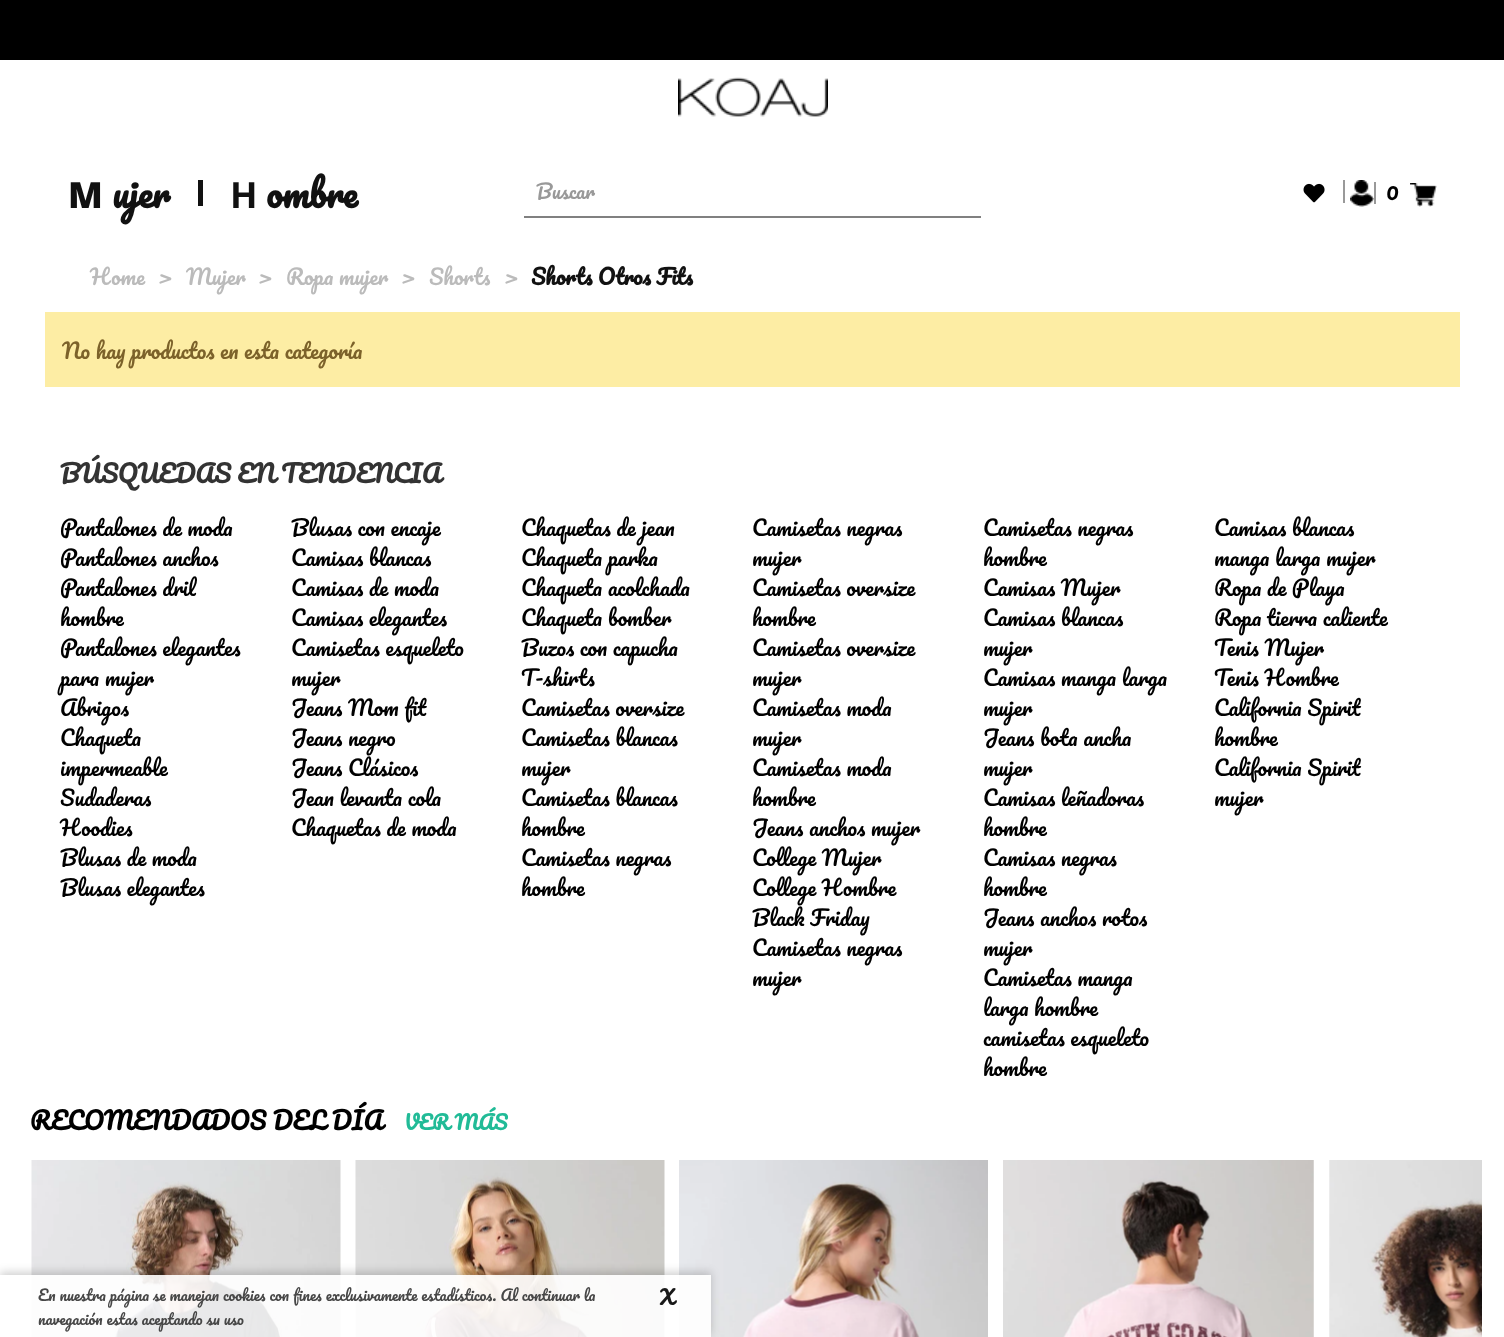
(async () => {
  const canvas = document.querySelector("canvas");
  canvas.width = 1504;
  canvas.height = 1337;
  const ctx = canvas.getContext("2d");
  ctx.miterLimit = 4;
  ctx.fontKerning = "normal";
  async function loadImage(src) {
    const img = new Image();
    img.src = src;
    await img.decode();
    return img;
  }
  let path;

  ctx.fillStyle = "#ffffff";
  ctx.fillRect(0, 0, 1504, 1337);
  ctx.fillStyle = "#000000";
  ctx.fillRect(0, 0, 1504, 60);
  ctx.drawImage(await loadImage("img/1.png"), 678, 77, 150, 40);
  ctx.fillStyle = "#111111";
  ctx.fillRect(198, 180, 5, 26);
  ctx.fillStyle = "#808080";
  ctx.fillRect(524, 216, 457, 2);
  ctx.drawImage(await loadImage("img/2.png"), 1303, 183, 22, 20);
  ctx.fillStyle = "#999999";
  ctx.fillRect(1343, 180, 2, 23);
  ctx.drawImage(await loadImage("img/3.png"), 1350, 180, 24, 27);
  ctx.fillRect(1374, 182, 2, 22);
  ctx.drawImage(await loadImage("img/4.png"), 1410, 183, 27, 24);
  ctx.fillStyle = "#fdeda4";
  ctx.fillRect(45, 312, 1415, 75);
  ctx.drawImage(await loadImage("img/5.png"), 31, 1160, 310, 177);
  ctx.drawImage(await loadImage("img/6.png"), 355, 1160, 310, 177);
  ctx.drawImage(await loadImage("img/7.png"), 679, 1160, 309, 177);
  ctx.drawImage(await loadImage("img/8.png"), 1003, 1160, 311, 177);
  ctx.drawImage(await loadImage("img/9.png"), 1329, 1160, 153, 177);
  ctx.save();
  path = new Path2D("M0 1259H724V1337H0ZM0 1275H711V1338H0Z");
  ctx.clip(path, "evenodd");
  ctx.fillStyle = "rgba(0, 0, 0, 0.18)";
  ctx.filter = "blur(4px)";
  ctx.beginPath();
  ctx.rect(0, 1272, 711, 63);
  ctx.fill();
  ctx.filter = "none";
  ctx.restore();
  ctx.fillStyle = "rgba(255, 255, 255, 0.9)";
  ctx.fillRect(31, 1275, 680, 62);
  ctx.font = "900 36px Noto Sans";
  ctx.fillStyle = "#111111";
  ctx.fillText("M", 68, 208);
  ctx.font = "bold 36px Pacifico";
  ctx.fillText("ujer", 112, 208);
  ctx.font = "bold 36px Noto Sans";
  ctx.fillText("H", 230, 208);
  ctx.font = "bold 36px Pacifico";
  ctx.fillText("ombre", 266, 208);
  ctx.font = "19.5px Pacifico";
  ctx.fillStyle = "#999999";
  ctx.fillText("Buscar", 536, 199);
  ctx.font = "24px Pacifico";
  ctx.fillStyle = "#000000";
  ctx.fillText("0", 1386, 200);
  ctx.font = "21px Pacifico";
  ctx.fillStyle = "#bbbbbb";
  for (const [text, x, y] of [
    ["Home", 90, 285],
    [">", 158, 285],
    ["Mujer", 186, 285],
    [">", 258, 285],
    ["Ropa mujer", 286, 285],
    [">", 401, 285],
    ["Shorts", 429, 285],
    [">", 504, 285],
  ]) {
    ctx.fillText(text, x, y);
  }
  ctx.font = "bold 21px Pacifico";
  ctx.fillStyle = "#111111";
  ctx.fillText("Shorts Otros Fits", 531, 285);
  ctx.font = "21px Pacifico";
  ctx.fillStyle = "#7c622a";
  ctx.fillText("No hay productos en esta categoría", 62, 359);
  ctx.font = "bold 24px Pacifico";
  ctx.fillStyle = "#333333";
  ctx.fillText("BÚSQUEDAS EN TENDENCIA", 60, 483);
  ctx.font = "21px Pacifico";
  ctx.fillStyle = "#000000";
  for (const [text, x, y] of [
    ["Pantalones de moda", 60, 536],
    ["Pantalones anchos", 60, 566],
    ["Pantalones dril", 60, 596],
    ["hombre", 60, 626],
    ["Pantalones elegantes", 60, 656],
    ["para mujer", 60, 686],
    ["Abrigos", 60, 716],
    ["Chaqueta", 60, 746],
    ["impermeable", 60, 776],
    ["Sudaderas", 60, 806],
    ["Hoodies", 60, 836],
    ["Blusas de moda", 60, 866],
    ["Blusas elegantes", 60, 896],
    ["Blusas con encaje", 291, 536],
    ["Camisas blancas", 291, 566],
    ["Camisas de moda", 291, 596],
    ["Camisas elegantes", 291, 626],
    ["Camisetas esqueleto", 291, 656],
    ["mujer", 291, 686],
    ["Jeans Mom fit", 291, 716],
    ["Jeans negro", 291, 746],
    ["Jeans Clásicos", 291, 776],
    ["Jean levanta cola", 291, 806],
    ["Chaquetas de moda", 291, 836],
    ["Chaquetas de jean", 521, 536],
    ["Chaqueta parka", 521, 566],
    ["Chaqueta acolchada", 521, 596],
    ["Chaqueta bomber", 521, 626],
    ["Buzos con capucha", 521, 656],
    ["T-shirts", 521, 686],
    ["Camisetas oversize", 521, 716],
    ["Camisetas blancas", 521, 746],
    ["mujer", 521, 776],
    ["Camisetas blancas", 521, 806],
    ["hombre", 521, 836],
    ["Camisetas negras", 521, 866],
    ["hombre", 521, 896],
    ["Camisetas negras", 752, 536],
    ["mujer", 752, 566],
    ["Camisetas oversize", 752, 596],
    ["hombre", 752, 626],
    ["Camisetas oversize", 752, 656],
    ["mujer", 752, 686],
    ["Camisetas moda", 752, 716],
    ["mujer", 752, 746],
    ["Camisetas moda", 752, 776],
    ["hombre", 752, 806],
    ["Jeans anchos mujer", 752, 836],
    ["College Mujer", 752, 866],
    ["College Hombre", 752, 896],
    ["Black Friday", 752, 926],
    ["Camisetas negras", 752, 956],
    ["mujer", 752, 986],
    ["Camisetas negras", 983, 536],
    ["hombre", 983, 566],
    ["Camisas Mujer", 983, 596],
    ["Camisas blancas", 983, 626],
    ["mujer", 983, 656],
    ["Camisas manga larga", 983, 686],
    ["mujer", 983, 716],
    ["Jeans bota ancha", 983, 746],
    ["mujer", 983, 776],
    ["Camisas leñadoras", 983, 806],
    ["hombre", 983, 836],
    ["Camisas negras", 983, 866],
    ["hombre", 983, 896],
    ["Jeans anchos rotos", 983, 926],
    ["mujer", 983, 956],
    ["Camisetas manga", 983, 986],
    ["larga hombre", 983, 1016],
    ["camisetas esqueleto", 983, 1046],
    ["hombre", 983, 1076],
    ["Camisas blancas", 1214, 536],
    ["manga larga mujer", 1214, 566],
    ["Ropa de Playa", 1214, 596],
    ["Ropa tierra caliente", 1214, 626],
    ["Tenis Mujer", 1214, 656],
    ["Tenis Hombre", 1214, 686],
    ["California Spirit", 1214, 716],
    ["hombre", 1214, 746],
    ["California Spirit", 1214, 776],
    ["mujer", 1214, 806],
  ]) {
    ctx.fillText(text, x, y);
  }
  ctx.font = "bold 24px Pacifico";
  ctx.fillText("RECOMENDADOS DEL DÍA", 30, 1130);
  ctx.font = "bold 19.5px Pacifico";
  ctx.fillStyle = "#21bb97";
  ctx.fillText("VER MÁS", 404, 1130);
  ctx.font = "15px Pacifico";
  ctx.fillStyle = "#474747";
  ctx.fillText("En nuestra página se manejan cookies con fines exclusivamente estadísticos. Al continuar la", 38, 1301);
  ctx.fillText("navegación estas aceptando su uso", 38, 1325);
  ctx.font = "bold 19.5px Pacifico";
  ctx.fillStyle = "#191919";
  ctx.fillText("X", 660, 1305);
})();
